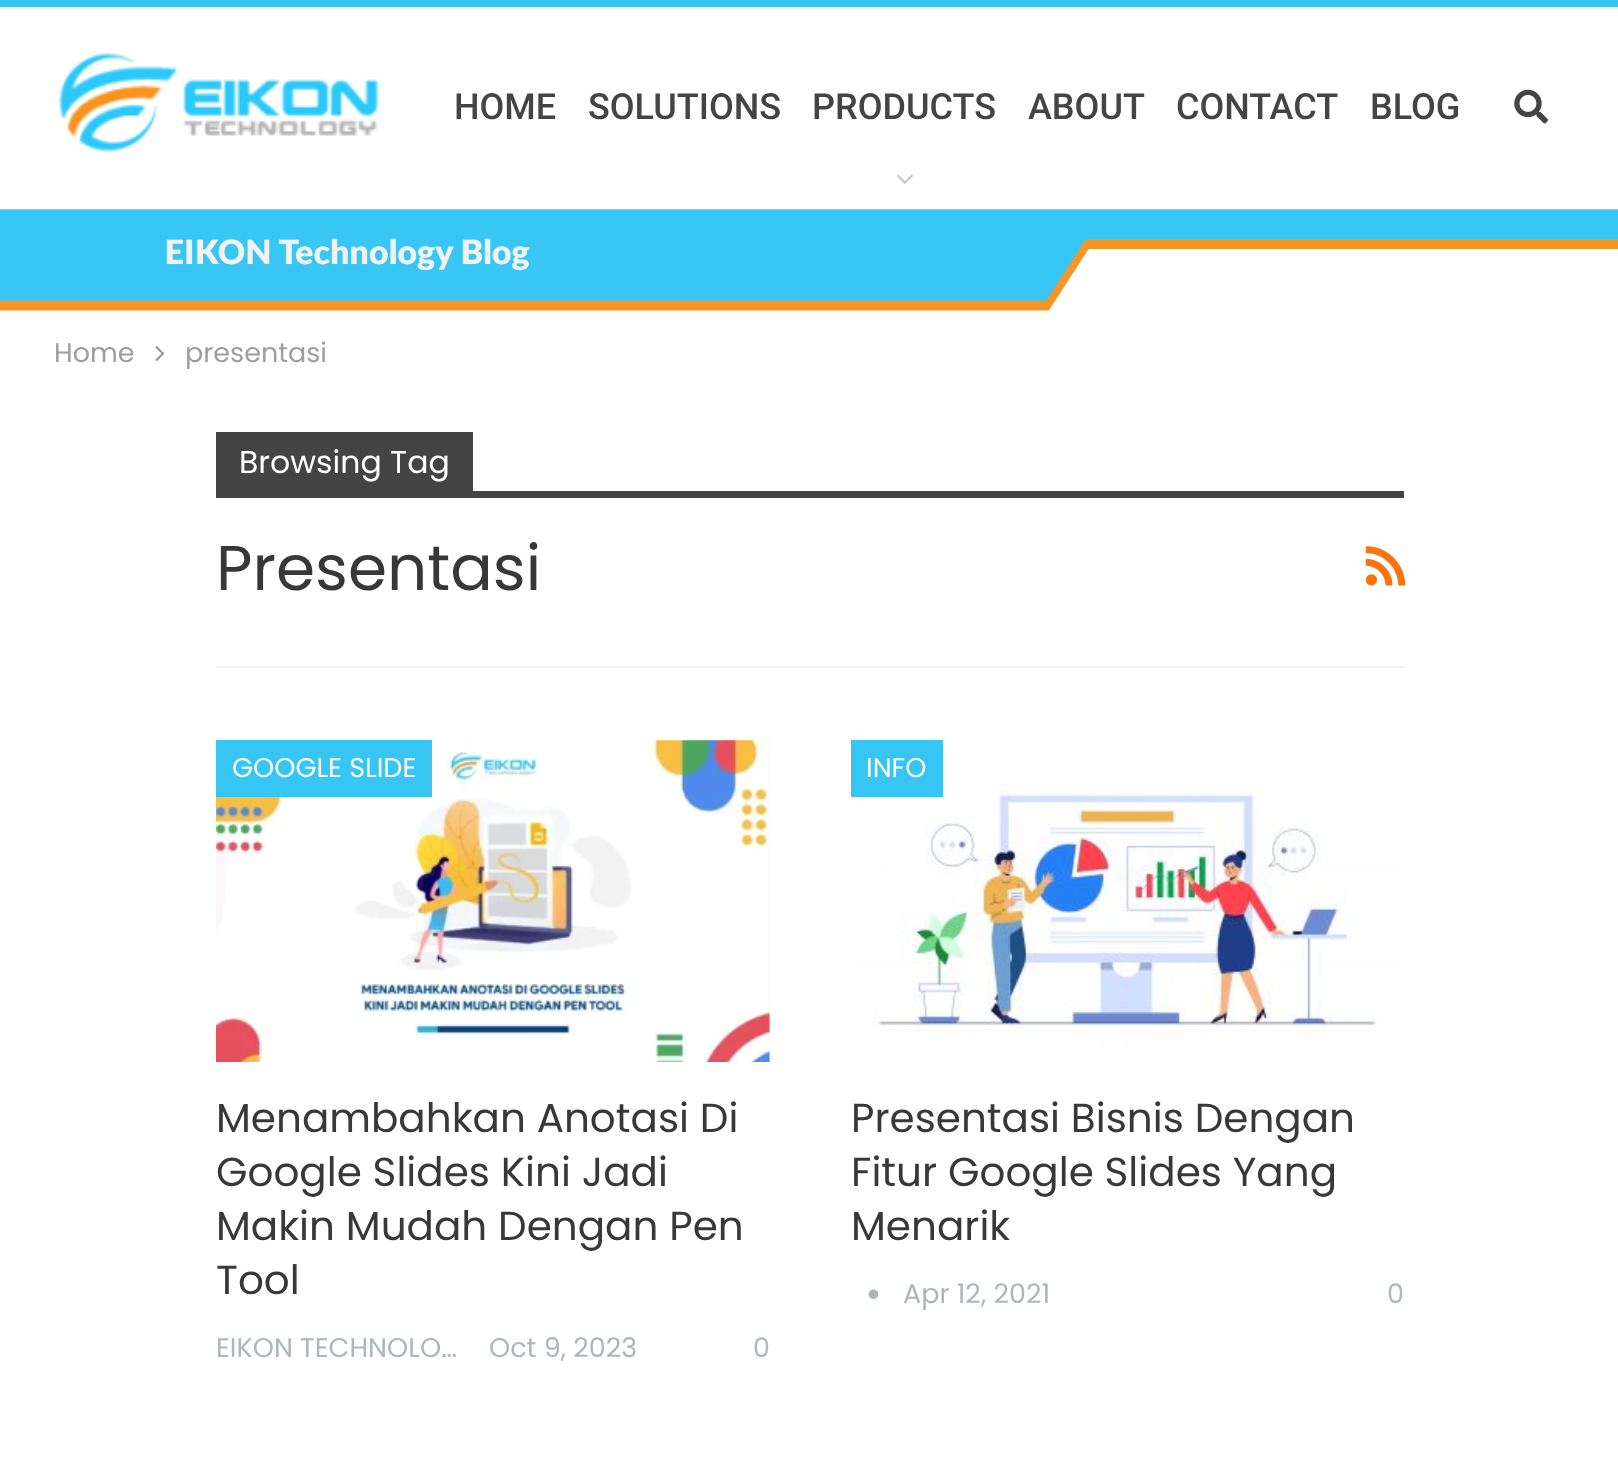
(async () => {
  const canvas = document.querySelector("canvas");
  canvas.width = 1618;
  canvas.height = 1475;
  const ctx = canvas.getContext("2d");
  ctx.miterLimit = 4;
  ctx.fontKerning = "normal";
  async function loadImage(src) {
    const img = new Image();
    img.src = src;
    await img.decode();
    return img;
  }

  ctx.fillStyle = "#37c6f4";
  ctx.fillRect(0, 0, 1618, 1475);
  ctx.fillStyle = "#ffffff";
  ctx.fillRect(0, 7, 1618, 1468);
  ctx.drawImage(await loadImage("img/1.png"), 57, 51, 323, 101);
  ctx.drawImage(await loadImage("img/2.png"), 897, 174, 16, 10);
  ctx.drawImage(await loadImage("img/3.png"), 1514, 89, 34, 35);
  ctx.drawImage(await loadImage("img/4.png"), 0, 209, 1618, 102);
  ctx.drawImage(await loadImage("img/5.png"), 155, 346, 10, 15);
  for (const [x, y, w, h, color] of [
    [216, 666, 1188, 2, "#f0f0f0"],
    [216, 432, 257, 59, "#444444"],
    [216, 491, 1188, 7, "#444444"],
  ]) {
    ctx.fillStyle = color;
    ctx.fillRect(x, y, w, h);
  }
  ctx.drawImage(await loadImage("img/6.png"), 1365, 546, 41, 40);
  ctx.fillStyle = "#f5f5f5";
  ctx.fillRect(432, 740, 338, 322);
  ctx.drawImage(await loadImage("img/7.png"), 216, 740, 554, 322);
  ctx.fillStyle = "#37c6f4";
  ctx.fillRect(216, 740, 216, 57);
  ctx.drawImage(await loadImage("img/8.png"), 851, 740, 553, 322);
  ctx.fillRect(851, 740, 92, 57);
  ctx.drawImage(await loadImage("img/9.png"), 868, 1289, 10, 10);
  ctx.font = "500 36px Roboto";
  ctx.fillStyle = "#444444";
  for (const [text, x, y] of [
    ["HOME", 454, 119],
    ["SOLUTIONS", 588, 119],
    ["PRODUCTS", 812, 119],
    ["ABOUT", 1028, 119],
    ["CONTACT", 1176, 119],
    ["BLOG", 1370, 119],
  ]) {
    ctx.fillText(text, x, y);
  }
  ctx.font = "27px Poppins";
  ctx.fillStyle = "#9e9e9e";
  ctx.fillText("Home", 54, 362);
  ctx.fillText("presentasi", 185, 362);
  ctx.font = "31.5px Poppins";
  ctx.fillStyle = "#ffffff";
  ctx.fillText("Browsing Tag", 239, 473);
  ctx.font = "63px Poppins";
  ctx.fillStyle = "#383838";
  ctx.fillText("Presentasi", 216, 590);
  ctx.font = "27px Poppins";
  ctx.fillStyle = "#ffffff";
  ctx.fillText("GOOGLE SLIDE", 232, 777);
  ctx.font = "40.5px Poppins";
  ctx.fillStyle = "#383838";
  for (const [text, x, y] of [
    ["Menambahkan Anotasi Di", 216, 1132],
    ["Google Slides Kini Jadi", 216, 1186],
    ["Makin Mudah Dengan Pen", 216, 1240],
    ["Tool", 216, 1294],
  ]) {
    ctx.fillText(text, x, y);
  }
  ctx.font = "27px Poppins";
  ctx.fillStyle = "#adb5bd";
  for (const [text, x, y] of [
    ["EIKON TECHNOLO…", 216, 1357],
    ["Oct 9, 2023", 489, 1357],
    ["0", 753, 1357],
  ]) {
    ctx.fillText(text, x, y);
  }
  ctx.fillStyle = "#ffffff";
  ctx.fillText("INFO", 866, 777);
  ctx.font = "40.5px Poppins";
  ctx.fillStyle = "#383838";
  for (const [text, x, y] of [
    ["Presentasi Bisnis Dengan", 851, 1132],
    ["Fitur Google Slides Yang", 851, 1186],
    ["Menarik", 851, 1240],
  ]) {
    ctx.fillText(text, x, y);
  }
  ctx.font = "27px Poppins";
  ctx.fillStyle = "#adb5bd";
  ctx.fillText("Apr 12, 2021", 903, 1303);
  ctx.fillText("0", 1387, 1303);
})();
